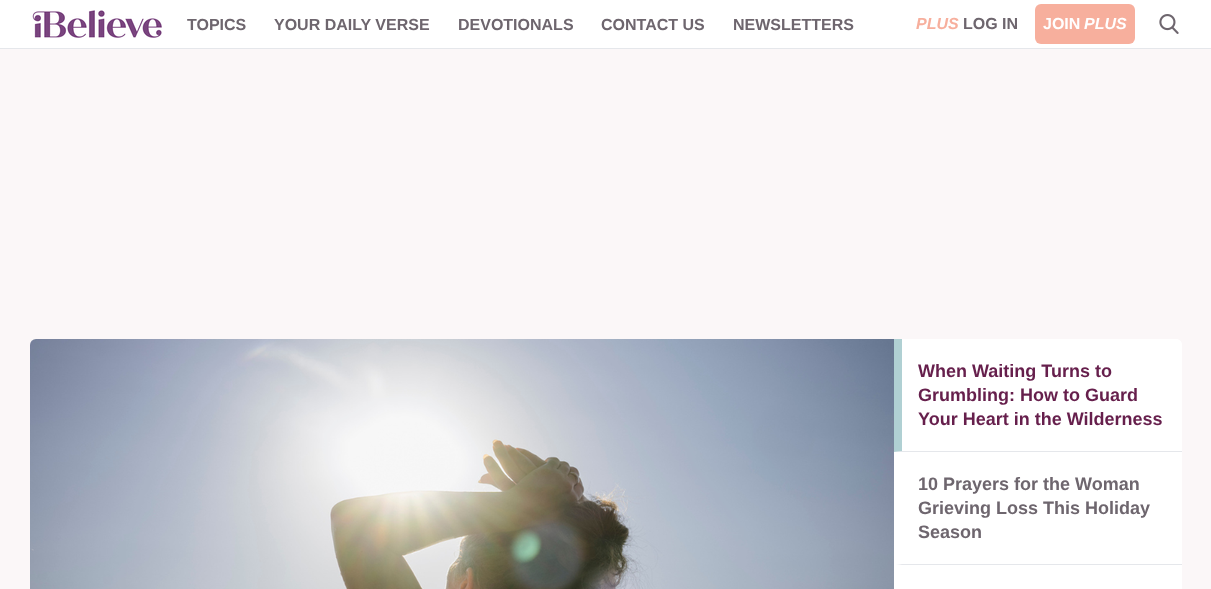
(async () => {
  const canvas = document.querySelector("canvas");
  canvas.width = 1211;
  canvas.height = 589;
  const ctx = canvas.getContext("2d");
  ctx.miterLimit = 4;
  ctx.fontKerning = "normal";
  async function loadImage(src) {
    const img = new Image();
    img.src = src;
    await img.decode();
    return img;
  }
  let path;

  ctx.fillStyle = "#ffffff";
  ctx.fillRect(0, 0, 1211, 589);
  ctx.fillStyle = "#e5e7eb";
  ctx.fillRect(0, 48, 1211, 1);
  ctx.drawImage(await loadImage("img/1.png"), 32, 10, 130, 28);
  ctx.fillStyle = "#f7af9d";
  ctx.beginPath();
  ctx.roundRect(1035, 4, 100, 40, 6);
  ctx.fill();
  ctx.drawImage(await loadImage("img/2.png"), 1159, 14, 20, 20);
  ctx.fillStyle = "#fbf7f8";
  ctx.fillRect(0, 49, 1211, 540);
  ctx.drawImage(await loadImage("img/3.png"), 30, 339, 864, 250);
  ctx.fillStyle = "#ffffff";
  path = new Path2D("M894 339H1176C1179.5 339 1182 341.5 1182 345V589C1182 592.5 1179.5 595 1176 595H894Z");
  ctx.fill(path);
  ctx.fillStyle = "#e5e7eb";
  path = new Path2D("M1182 452H894L902 451H1182Z");
  ctx.fill(path);
  ctx.fillStyle = "#b0d0d3";
  path = new Path2D("M894 452V339H902V451Z");
  ctx.fill(path);
  ctx.fillStyle = "#e5e7eb";
  path = new Path2D("M1182 565H894L902 564H1182Z");
  ctx.fill(path);
  ctx.fillStyle = "#ffffff";
  path = new Path2D("M894 565V452H902V564Z");
  ctx.fill(path);
  ctx.font = "bold 16px Liberation Sans";
  ctx.fillStyle = "#6e666e";
  for (const [text, x, y] of [
    ["TOPICS", 187, 30],
    ["YOUR DAILY VERSE", 274, 30],
    ["DEVOTIONALS", 458, 30],
    ["CONTACT US", 601, 30],
    ["NEWSLETTERS", 733, 30],
  ]) {
    ctx.fillText(text, x, y);
  }
  ctx.font = "italic bold 16px Liberation Sans";
  ctx.fillStyle = "#f7af9d";
  ctx.fillText("PLUS", 916, 29);
  ctx.font = "bold 16px Liberation Sans";
  ctx.fillStyle = "#6e666e";
  ctx.fillText("LOG IN", 963, 29);
  ctx.fillStyle = "#ffffff";
  ctx.fillText("JOIN", 1043, 29);
  ctx.font = "italic bold 16px Liberation Sans";
  ctx.fillText("PLUS", 1084, 29);
  ctx.font = "bold 18px Liberation Sans";
  ctx.fillStyle = "#661f4c";
  for (const [text, x, y] of [
    ["When Waiting Turns to", 918, 377],
    ["Grumbling: How to Guard", 918, 401],
    ["Your Heart in the Wilderness", 918, 425],
  ]) {
    ctx.fillText(text, x, y);
  }
  ctx.fillStyle = "#6e666e";
  for (const [text, x, y] of [
    ["10 Prayers for the Woman", 918, 490],
    ["Grieving Loss This Holiday", 918, 514],
    ["Season", 918, 538],
  ]) {
    ctx.fillText(text, x, y);
  }
})();
